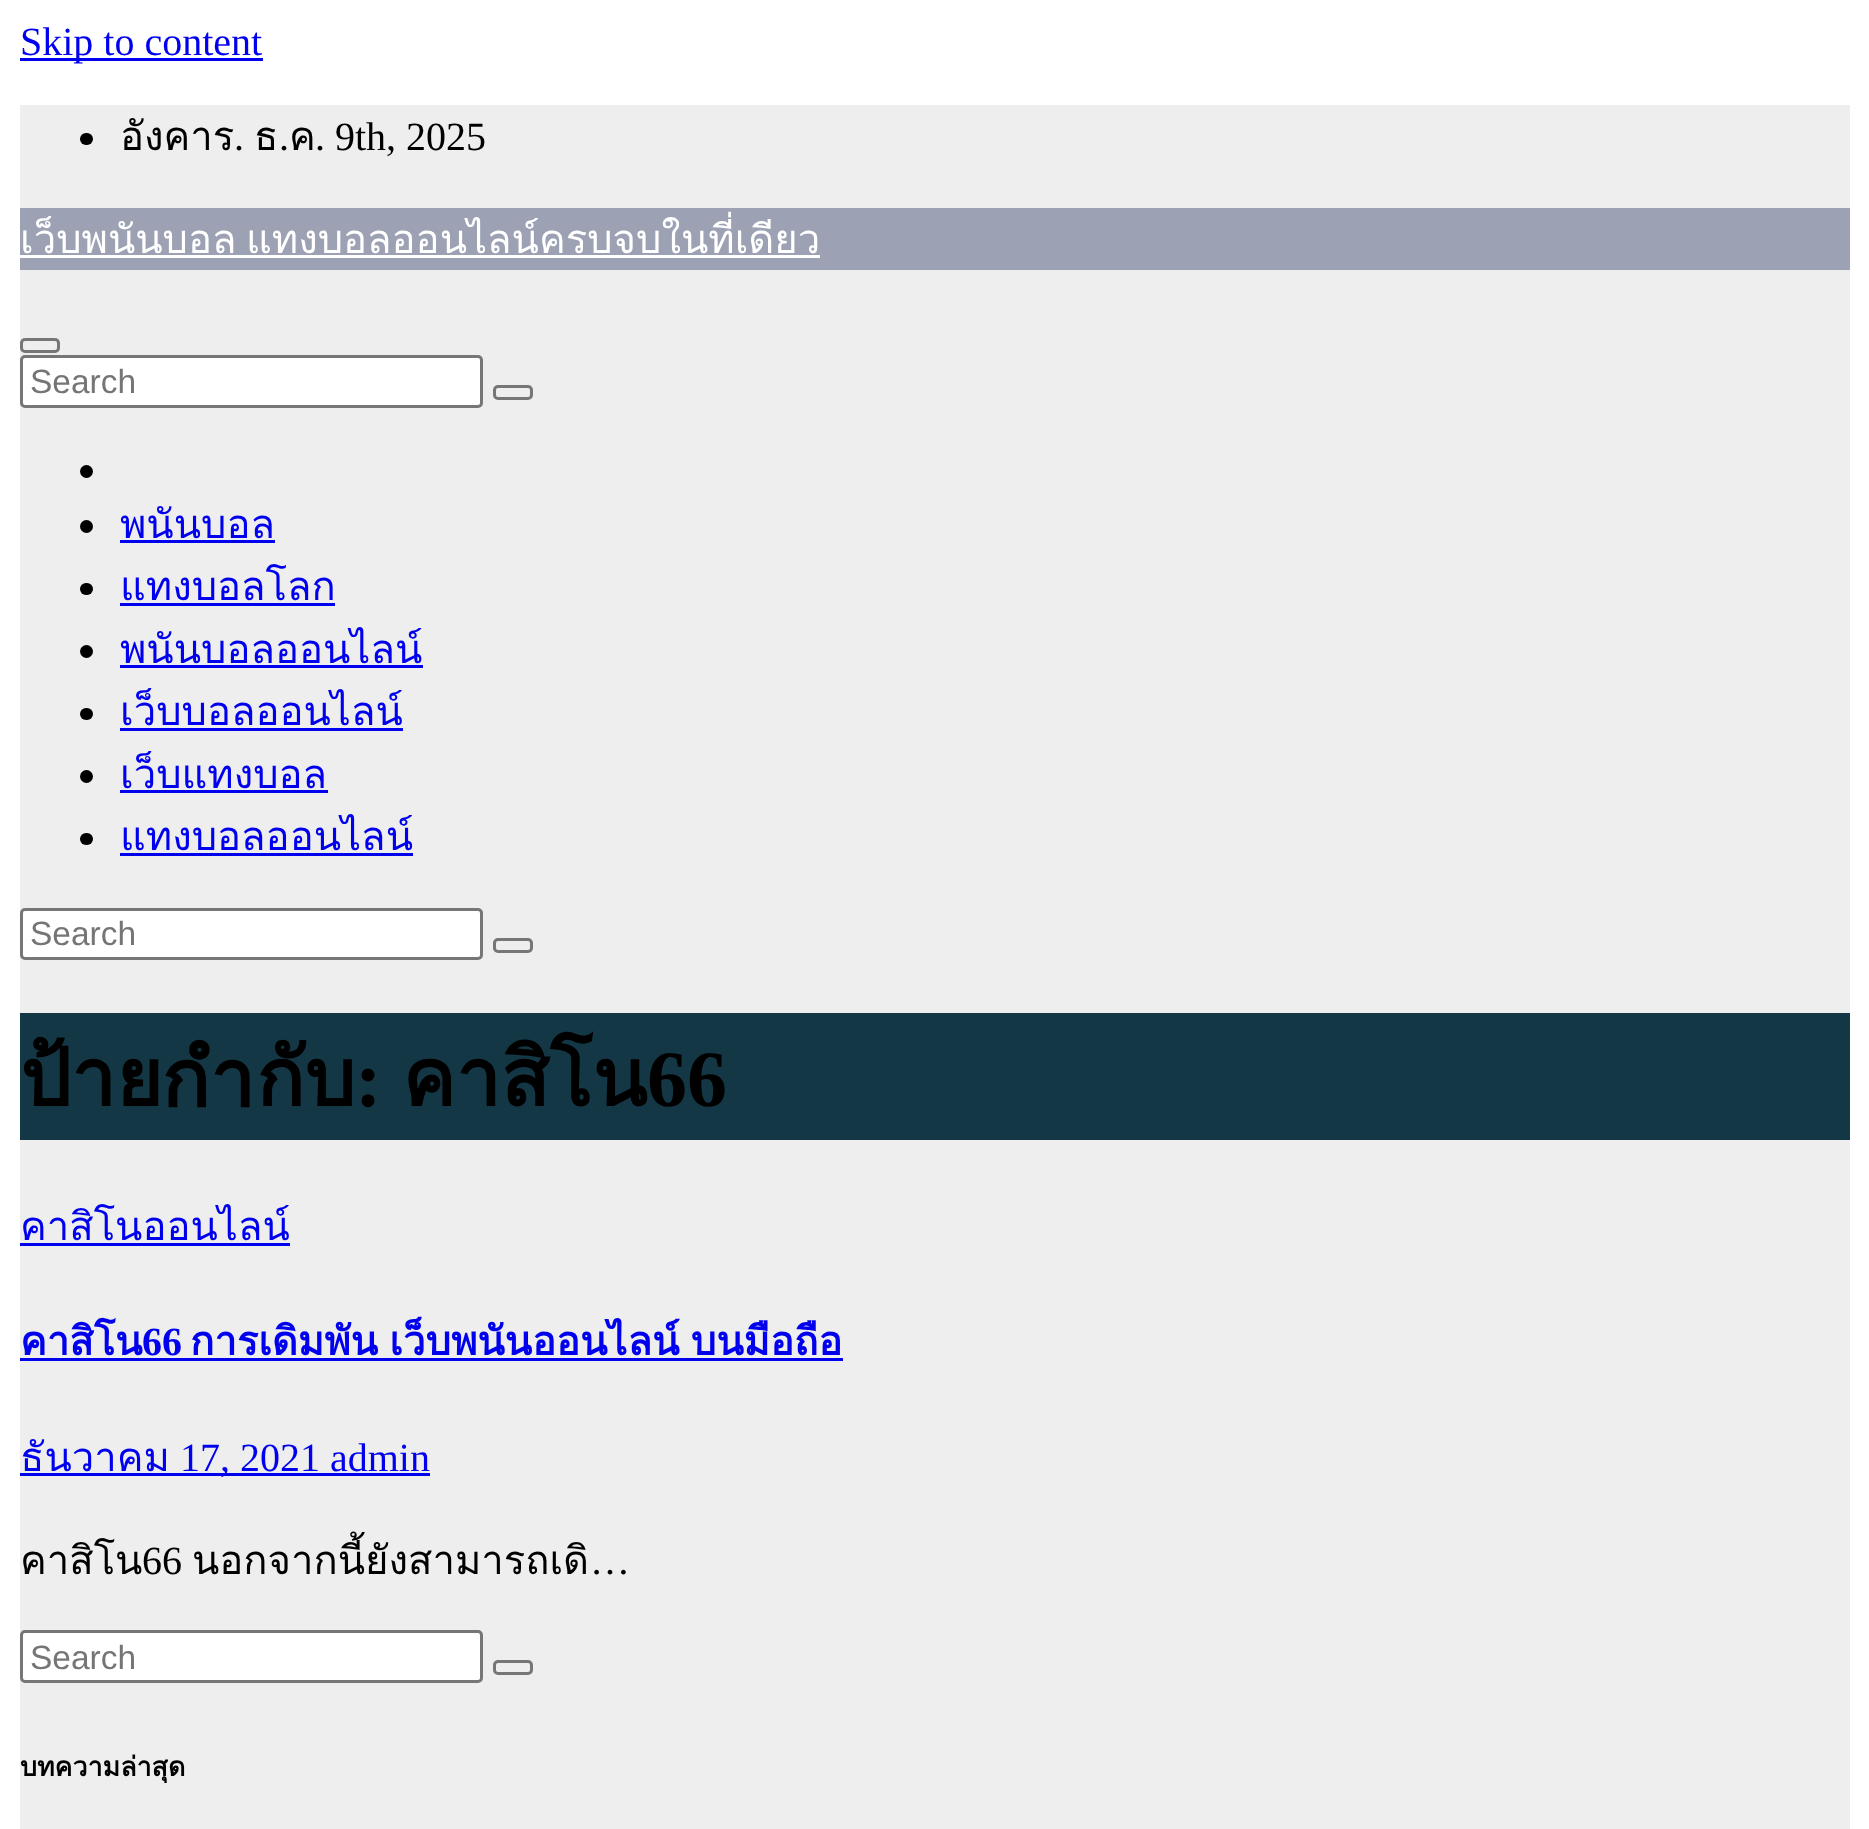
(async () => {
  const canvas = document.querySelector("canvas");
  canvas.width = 1869;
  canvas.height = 1829;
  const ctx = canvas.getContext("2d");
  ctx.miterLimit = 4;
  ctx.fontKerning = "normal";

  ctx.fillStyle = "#ffffff";
  ctx.fillRect(0, 0, 1869, 1829);
  ctx.fillStyle = "#0000ee";
  ctx.fillRect(20, 58, 243, 3);
  ctx.fillStyle = "#eeeeee";
  ctx.fillRect(20, 105, 1830, 1724);
  ctx.fillStyle = "#000000";
  ctx.beginPath();
  ctx.roundRect(80, 133, 13, 12, 6);
  ctx.fill();
  ctx.fillStyle = "#9ca2b3";
  ctx.fillRect(20, 208, 1830, 62);
  ctx.fillStyle = "#ffffff";
  ctx.fillRect(20, 255, 800, 3);
  ctx.beginPath();
  ctx.roundRect(21.5, 339.5, 37, 12, 3.5);
  ctx.strokeStyle = "#767676";
  ctx.lineWidth = 3;
  ctx.stroke();
  ctx.beginPath();
  ctx.roundRect(21.5, 356.5, 460, 50, 3.5);
  ctx.fill();
  ctx.stroke();
  ctx.beginPath();
  ctx.roundRect(494.5, 386.5, 37, 12, 3.5);
  ctx.stroke();
  ctx.fillStyle = "#000000";
  ctx.beginPath();
  ctx.arc(86.5, 471.5, 6.5, 0, Math.PI * 2);
  ctx.fill();
  ctx.beginPath();
  ctx.arc(86.5, 526.5, 6.5, 0, Math.PI * 2);
  ctx.fill();
  ctx.fillStyle = "#0000ee";
  ctx.fillRect(120, 540, 155, 3);
  ctx.fillStyle = "#000000";
  ctx.beginPath();
  ctx.roundRect(80, 583, 13, 12, 6);
  ctx.fill();
  ctx.fillStyle = "#0000ee";
  ctx.fillRect(120, 603, 215, 3);
  ctx.fillStyle = "#000000";
  ctx.beginPath();
  ctx.arc(86.5, 651.5, 6.5, 0, Math.PI * 2);
  ctx.fill();
  ctx.fillStyle = "#0000ee";
  ctx.fillRect(120, 665, 303, 3);
  ctx.fillStyle = "#000000";
  ctx.beginPath();
  ctx.roundRect(80, 708, 13, 12, 6);
  ctx.fill();
  ctx.fillStyle = "#0000ee";
  ctx.fillRect(120, 728, 283, 3);
  ctx.fillStyle = "#000000";
  ctx.beginPath();
  ctx.arc(86.5, 776.5, 6.5, 0, Math.PI * 2);
  ctx.fill();
  ctx.fillStyle = "#0000ee";
  ctx.fillRect(120, 790, 208, 3);
  ctx.fillStyle = "#000000";
  ctx.beginPath();
  ctx.roundRect(80, 833, 13, 12, 6);
  ctx.fill();
  ctx.fillStyle = "#0000ee";
  ctx.fillRect(120, 853, 293, 3);
  ctx.fillStyle = "#ffffff";
  ctx.beginPath();
  ctx.roundRect(21.5, 909.5, 460, 49, 3.5);
  ctx.fill();
  ctx.stroke();
  ctx.beginPath();
  ctx.roundRect(494.5, 939.5, 37, 12, 3.5);
  ctx.stroke();
  for (const [x, y, w, h, color] of [
    [20, 1013, 1830, 127, "#143745"],
    [20, 1243, 270, 3, "#0000ee"],
    [20, 1358, 823, 3, "#0000ee"],
    [20, 1473, 410, 3, "#0000ee"],
  ]) {
    ctx.fillStyle = color;
    ctx.fillRect(x, y, w, h);
  }
  ctx.fillStyle = "#ffffff";
  ctx.beginPath();
  ctx.roundRect(21.5, 1631.5, 460, 50, 3.5);
  ctx.fill();
  ctx.stroke();
  ctx.beginPath();
  ctx.roundRect(494.5, 1661.5, 37, 12, 3.5);
  ctx.stroke();
  ctx.font = "40px Liberation Serif";
  ctx.fillStyle = "#0000ee";
  ctx.fillText("Skip to content", 20, 55);
  ctx.font = "40px Loma";
  ctx.fillStyle = "#000000";
  for (const [text, x, y] of [
    ["อังคาร", 120, 150],
    ["ธ", 254, 150],
    ["ค", 289, 150],
  ]) {
    ctx.fillText(text, x, y);
  }
  ctx.font = "40px Liberation Serif";
  for (const [text, x, y] of [
    [". 9th, 2025", 315, 150],
    [".", 234, 150],
    [".", 279, 150],
  ]) {
    ctx.fillText(text, x, y);
  }
  ctx.wordSpacing = "-4px";
  ctx.font = "40px Loma";
  ctx.fillStyle = "#ffffff";
  ctx.fillText("เว็บพนันบอล แทงบอลออนไลน์ครบจบในที่เดียว", 20, 253);
  ctx.wordSpacing = "0px";
  ctx.font = "33.5px Liberation Sans";
  ctx.fillStyle = "#757575";
  ctx.fillText("Search", 30, 393);
  ctx.font = "40px Loma";
  ctx.fillStyle = "#0000ee";
  for (const [text, x, y] of [
    ["พนันบอล", 120, 538],
    ["แทงบอลโลก", 120, 600],
    ["พนันบอลออนไลน์", 120, 663],
    ["เว็บบอลออนไลน์", 120, 725],
    ["เว็บแทงบอล", 120, 788],
    ["แทงบอลออนไลน์", 120, 850],
  ]) {
    ctx.fillText(text, x, y);
  }
  ctx.font = "33.5px Liberation Sans";
  ctx.fillStyle = "#757575";
  ctx.fillText("Search", 30, 945);
  ctx.font = "bold 80px Loma";
  ctx.fillStyle = "#000000";
  ctx.fillText("ป้ายกำกับ", 20, 1106);
  ctx.font = "bold 80px Liberation Serif";
  ctx.fillText(":", 355, 1106);
  ctx.font = "bold 80px Loma";
  ctx.fillText("คาสิโน", 402, 1106);
  ctx.font = "bold 80px Liberation Serif";
  ctx.fillText("66", 647, 1106);
  ctx.font = "40px Loma";
  ctx.fillStyle = "#0000ee";
  ctx.fillText("คาสิโนออนไลน์", 20, 1240);
  ctx.font = "bold 40px Loma";
  ctx.fillText("คาสิโน", 20, 1355);
  ctx.font = "bold 40px Liberation Serif";
  ctx.fillText("66", 142, 1355);
  ctx.wordSpacing = "-2px";
  ctx.font = "bold 40px Loma";
  ctx.fillText("การเดิมพัน เว็บพนันออนไลน์ บนมือถือ", 190, 1355);
  ctx.wordSpacing = "0px";
  ctx.font = "40px Loma";
  ctx.fillText("ธันวาคม", 20, 1471);
  ctx.font = "40px Liberation Serif";
  ctx.fillText("17, 2021 admin", 180, 1471);
  ctx.font = "40px Loma";
  ctx.fillStyle = "#000000";
  ctx.fillText("คาสิโน", 20, 1574);
  ctx.font = "40px Liberation Serif";
  ctx.fillText("66", 142, 1574);
  ctx.font = "40px Loma";
  ctx.fillText("นอกจากนี้ยังสามารถเดิ", 192, 1574);
  ctx.font = "40px Liberation Serif";
  ctx.fillText("…", 590, 1574);
  ctx.font = "33.5px Liberation Sans";
  ctx.fillStyle = "#757575";
  ctx.fillText("Search", 30, 1669);
  ctx.font = "bold 26.75px Loma";
  ctx.fillStyle = "#000000";
  ctx.fillText("บทความล่าสุด", 20, 1776);
})();
